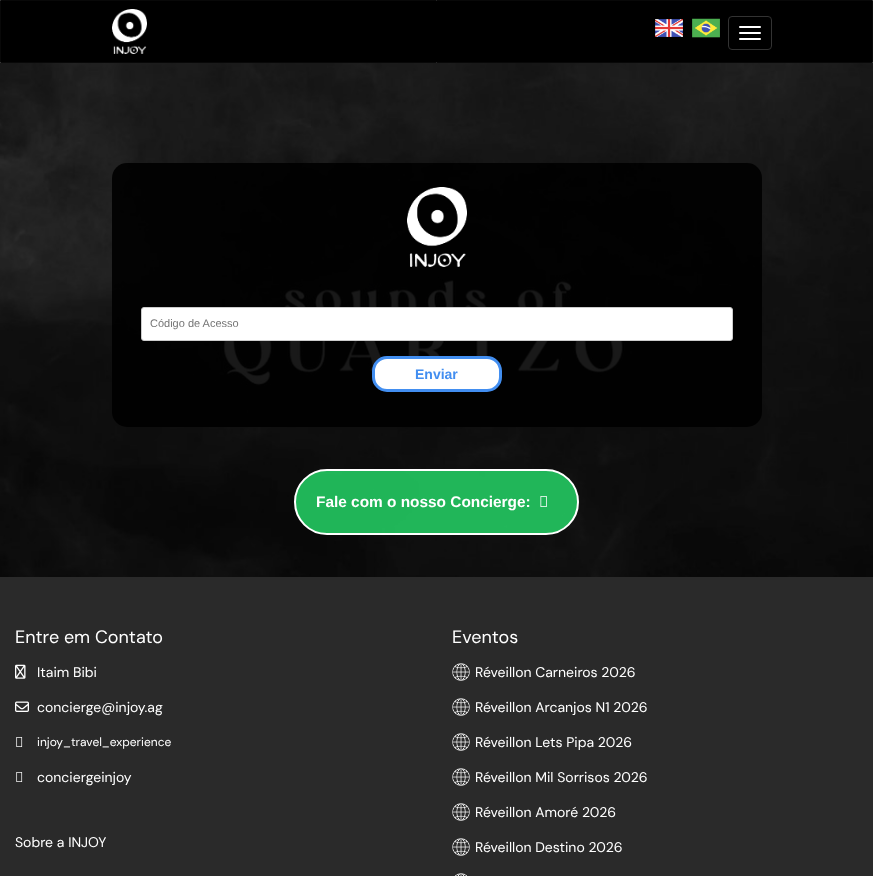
(async () => {
  const canvas = document.querySelector("canvas");
  canvas.width = 873;
  canvas.height = 876;
  const ctx = canvas.getContext("2d");
  ctx.miterLimit = 4;
  ctx.fontKerning = "normal";
  async function loadImage(src) {
    const img = new Image();
    img.src = src;
    await img.decode();
    return img;
  }

  ctx.fillStyle = "#ffffff";
  ctx.fillRect(0, 0, 873, 876);
  ctx.fillStyle = "#000000";
  ctx.beginPath();
  ctx.rect(0.5, 0.5, 872, 62);
  ctx.fill();
  ctx.strokeStyle = "#080808";
  ctx.stroke();
  ctx.drawImage(await loadImage("img/1.png"), 112, 9, 35, 45);
  ctx.drawImage(await loadImage("img/2.png"), 655, 19, 28, 18);
  ctx.drawImage(await loadImage("img/3.png"), 692, 18, 28, 20);
  ctx.beginPath();
  ctx.roundRect(728.5, 16.5, 43, 33, 3.5);
  ctx.strokeStyle = "#333333";
  ctx.stroke();
  ctx.fillStyle = "#ffffff";
  ctx.beginPath();
  ctx.roundRect(739, 26, 22, 2, 1);
  ctx.fill();
  ctx.beginPath();
  ctx.roundRect(739, 32, 22, 2, 1);
  ctx.fill();
  ctx.beginPath();
  ctx.roundRect(739, 38, 22, 2, 1);
  ctx.fill();
  ctx.drawImage(await loadImage("img/4.png"), 0, 63, 873, 514);
  ctx.fillStyle = "rgba(0, 0, 0, 0.9)";
  ctx.beginPath();
  ctx.roundRect(112, 163, 650, 264, 15);
  ctx.fill();
  ctx.drawImage(await loadImage("img/5.png"), 407, 187, 60, 80);
  ctx.fillStyle = "#ffffff";
  ctx.beginPath();
  ctx.roundRect(141.5, 307.5, 591, 33, 2.5);
  ctx.fill();
  ctx.strokeStyle = "#cccccc";
  ctx.stroke();
  ctx.beginPath();
  ctx.roundRect(373.5, 357.5, 127, 33, 13.5);
  ctx.fill();
  ctx.strokeStyle = "#428ef0";
  ctx.lineWidth = 3;
  ctx.stroke();
  ctx.fillStyle = "rgba(37, 211, 102, 0.85)";
  ctx.beginPath();
  ctx.roundRect(295, 470, 283, 64, 32);
  ctx.fill();
  ctx.strokeStyle = "#ffffff";
  ctx.lineWidth = 2;
  ctx.stroke();
  ctx.drawImage(await loadImage("img/6.png"), 540, 496, 7, 11);
  ctx.fillStyle = "#2a2a2a";
  ctx.fillRect(0, 577, 873, 299);
  ctx.drawImage(await loadImage("img/7.png"), 15, 664, 11, 15);
  ctx.drawImage(await loadImage("img/8.png"), 15, 701, 14, 11);
  ctx.drawImage(await loadImage("img/9.png"), 16, 737, 7, 10);
  ctx.drawImage(await loadImage("img/9.png"), 16, 772, 7, 10);
  ctx.drawImage(await loadImage("img/10.png"), 452, 663, 18, 18);
  ctx.drawImage(await loadImage("img/10.png"), 452, 698, 18, 18);
  ctx.drawImage(await loadImage("img/10.png"), 452, 733, 18, 18);
  ctx.drawImage(await loadImage("img/11.png"), 452, 768, 18, 18);
  ctx.drawImage(await loadImage("img/10.png"), 452, 803, 18, 18);
  ctx.drawImage(await loadImage("img/10.png"), 452, 838, 18, 18);
  ctx.drawImage(await loadImage("img/12.png"), 455, 873, 12, 3);
  ctx.font = "11px Liberation Sans";
  ctx.fillStyle = "#757575";
  ctx.fillText("Código de Acesso", 150, 327);
  ctx.font = "bold 14px Liberation Sans";
  ctx.fillStyle = "#428ef0";
  ctx.fillText("Enviar", 415, 379);
  ctx.font = "bold 15.4px Liberation Sans";
  ctx.fillStyle = "#ffffff";
  ctx.fillText("Fale com o nosso Concierge:", 316, 507);
  ctx.font = "18px DM Sans";
  ctx.fillText("Entre em Contato", 15, 643);
  ctx.font = "14px DM Sans";
  ctx.fillText("Itaim Bibi", 37, 677);
  ctx.fillText("concierge@injoy.ag", 37, 712);
  ctx.font = "12px DM Sans";
  ctx.fillText("injoy_travel_experience", 37, 746);
  ctx.font = "14px DM Sans";
  ctx.fillText("conciergeinjoy", 37, 782);
  ctx.fillText("Sobre a INJOY", 15, 847);
  ctx.font = "18px DM Sans";
  ctx.fillText("Eventos", 452, 643);
  ctx.font = "14px DM Sans";
  for (const [text, x, y] of [
    ["Réveillon Carneiros 2026", 475, 677],
    ["Réveillon Arcanjos N1 2026", 475, 712],
    ["Réveillon Lets Pipa 2026", 475, 747],
    ["Réveillon Mil Sorrisos 2026", 475, 782],
    ["Réveillon Amoré 2026", 475, 817],
    ["Réveillon Destino 2026", 475, 852],
  ]) {
    ctx.fillText(text, x, y);
  }
})();
